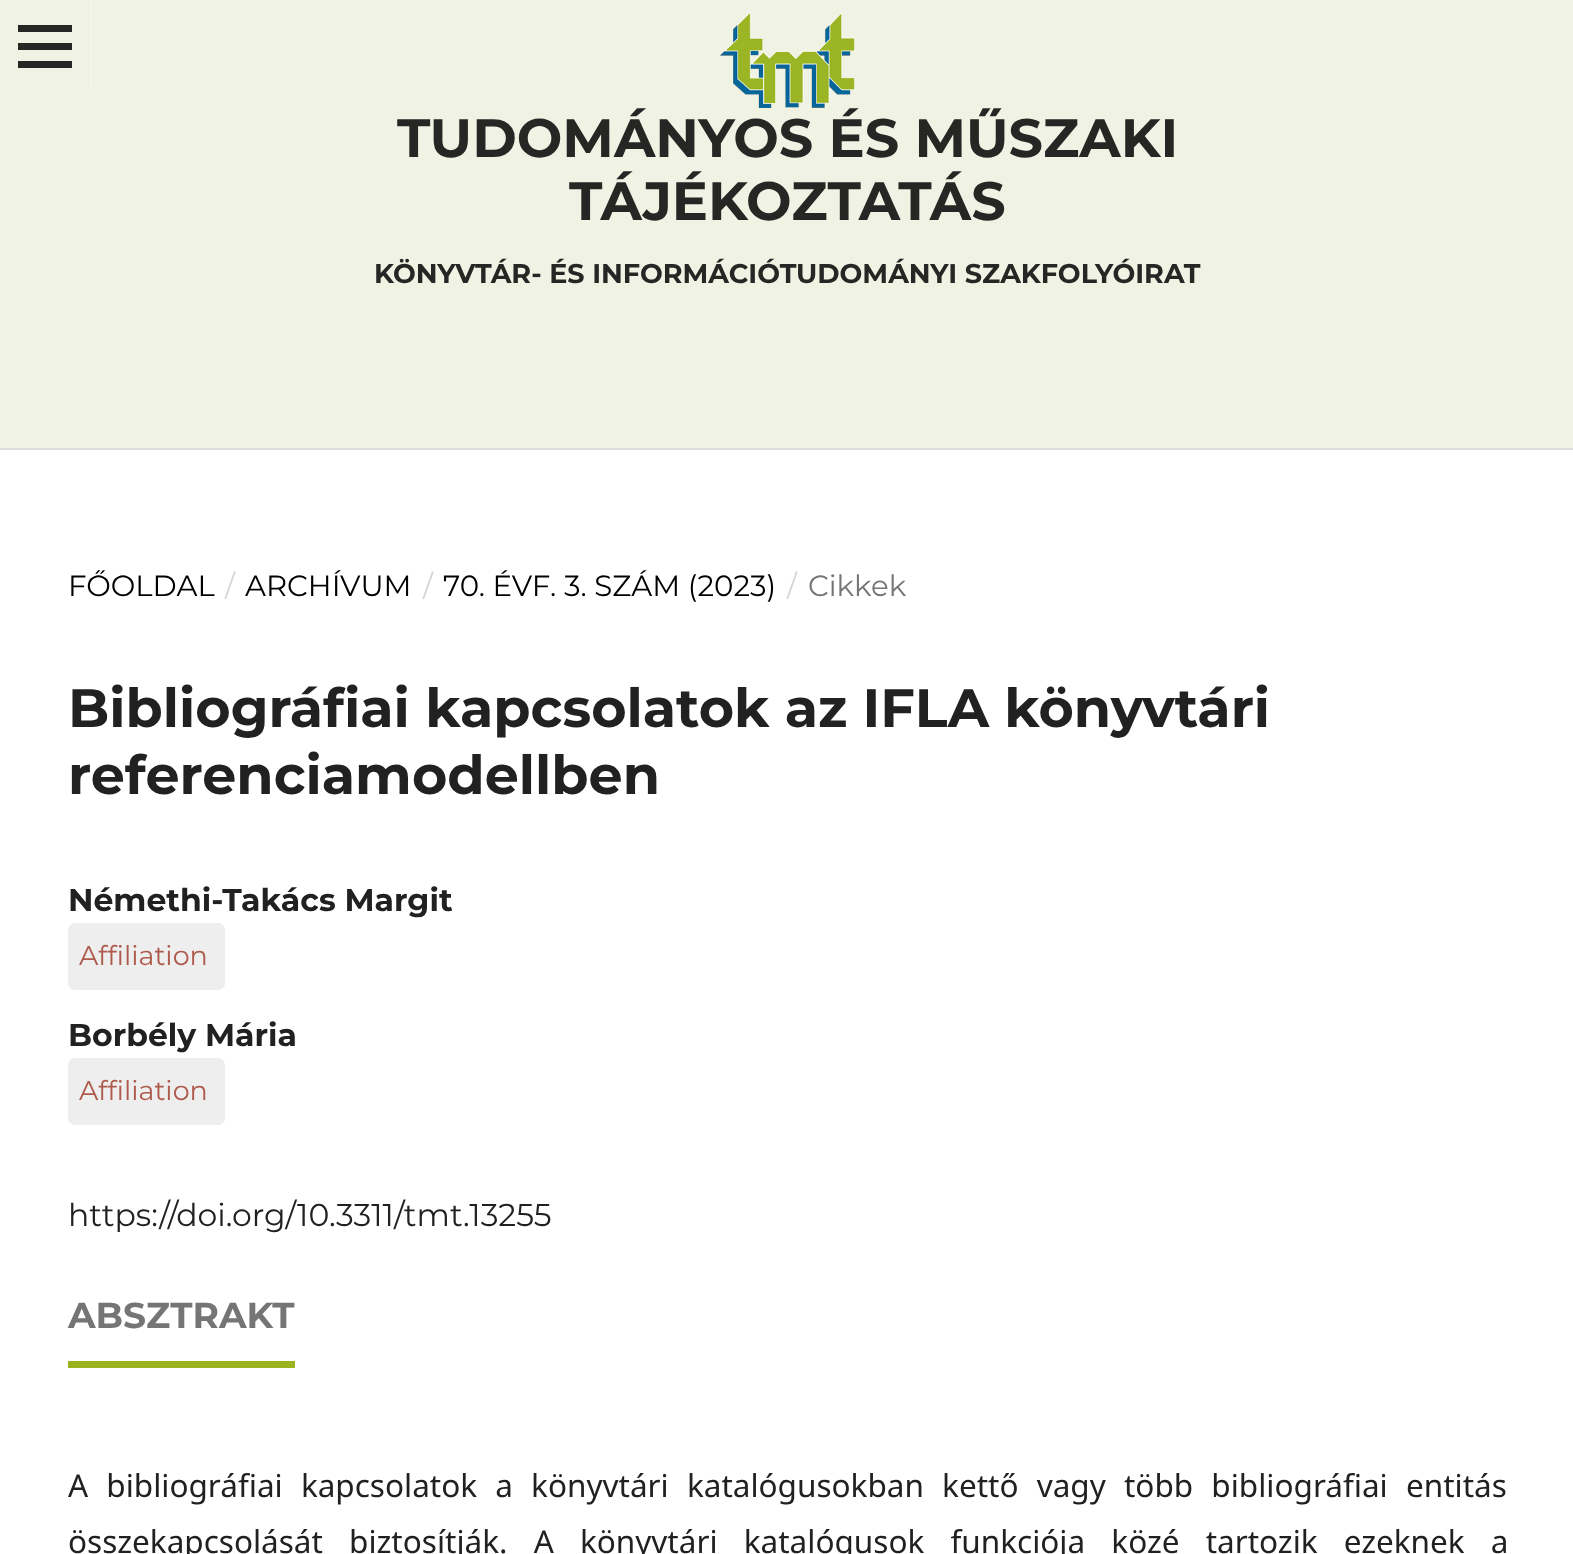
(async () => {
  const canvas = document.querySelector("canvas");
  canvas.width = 1573;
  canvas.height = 1554;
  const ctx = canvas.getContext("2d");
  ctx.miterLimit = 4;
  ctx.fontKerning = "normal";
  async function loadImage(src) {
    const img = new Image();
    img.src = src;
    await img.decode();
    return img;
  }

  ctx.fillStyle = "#ffffff";
  ctx.fillRect(0, 0, 1573, 1554);
  for (const [x, y, w, h, color] of [
    [0, 0, 1573, 448, "#f0f2e4"],
    [0, 448, 1573, 2, "#dddddd"],
    [90, 0, 2, 90, "#f3f5e9"],
    [18, 61, 54, 7, "#262724"],
    [18, 25, 54, 7, "#262724"],
    [18, 43, 54, 7, "#262724"],
  ]) {
    ctx.fillStyle = color;
    ctx.fillRect(x, y, w, h);
  }
  ctx.drawImage(await loadImage("img/1.png"), 720, 11, 135, 97);
  ctx.fillStyle = "#eeeeee";
  ctx.beginPath();
  ctx.roundRect(68, 923, 157, 67, 7);
  ctx.fill();
  ctx.beginPath();
  ctx.roundRect(68, 1058, 157, 67, 7);
  ctx.fill();
  ctx.fillStyle = "#9bb31f";
  ctx.fillRect(68, 1361, 227, 7);
  ctx.font = "bold 54px Montserrat";
  ctx.fillStyle = "#262724";
  ctx.fillText("TUDOMÁNYOS ÉS MŰSZAKI", 397, 157);
  ctx.fillText("TÁJÉKOZTATÁS", 569, 220);
  ctx.font = "bold 27px Montserrat";
  ctx.fillText("KÖNYVTÁR- ÉS INFORMÁCIÓTUDOMÁNYI SZAKFOLYÓIRAT", 374, 283);
  ctx.font = "29.25px Montserrat";
  ctx.fillStyle = "#000000";
  ctx.fillText("FŐOLDAL", 68, 596);
  ctx.fillStyle = "#d6d6d6";
  ctx.fillText("/", 225, 596);
  ctx.fillStyle = "#000000";
  ctx.fillText("ARCHÍVUM", 245, 596);
  ctx.fillStyle = "#d6d6d6";
  ctx.fillText("/", 423, 596);
  ctx.fillStyle = "#000000";
  ctx.fillText("70. ÉVF. 3. SZÁM (2023)", 443, 596);
  ctx.fillStyle = "#d6d6d6";
  ctx.fillText("/", 787, 596);
  ctx.fillStyle = "#757575";
  ctx.fillText("Cikkek", 808, 596);
  ctx.font = "bold 54px Montserrat";
  ctx.fillStyle = "#212121";
  ctx.fillText("Bibliográfiai kapcsolatok az IFLA könyvtári", 68, 727);
  ctx.fillText("referenciamodellben", 68, 794);
  ctx.font = "bold 31.5px Montserrat";
  ctx.fillText("Némethi-Takács Margit", 68, 911);
  ctx.font = "27px Montserrat";
  ctx.fillStyle = "#ae5b4d";
  ctx.fillText("Affiliation", 79, 965);
  ctx.font = "bold 31.5px Montserrat";
  ctx.fillStyle = "#212121";
  ctx.fillText("Borbély Mária", 68, 1046);
  ctx.font = "27px Montserrat";
  ctx.fillStyle = "#ae5b4d";
  ctx.fillText("Affiliation", 79, 1100);
  ctx.font = "31.5px Montserrat";
  ctx.fillStyle = "#212121";
  ctx.fillText("https://doi.org/10.3311/tmt.13255", 68, 1226);
  ctx.font = "bold 36px Montserrat";
  ctx.fillStyle = "#757575";
  ctx.fillText("ABSZTRAKT", 68, 1328);
  ctx.wordSpacing = "10px";
  ctx.font = "31.5px Noto Sans";
  ctx.fillStyle = "#212121";
  ctx.fillText("A bibliográfiai kapcsolatok a könyvtári katalógusokban kettő vagy több bibliográfiai entitás", 68, 1497);
  ctx.wordSpacing = "18px";
  ctx.fillText("összekapcsolását biztosítják. A könyvtári katalógusok funkciója közé tartozik ezeknek a", 68, 1553);
})();
